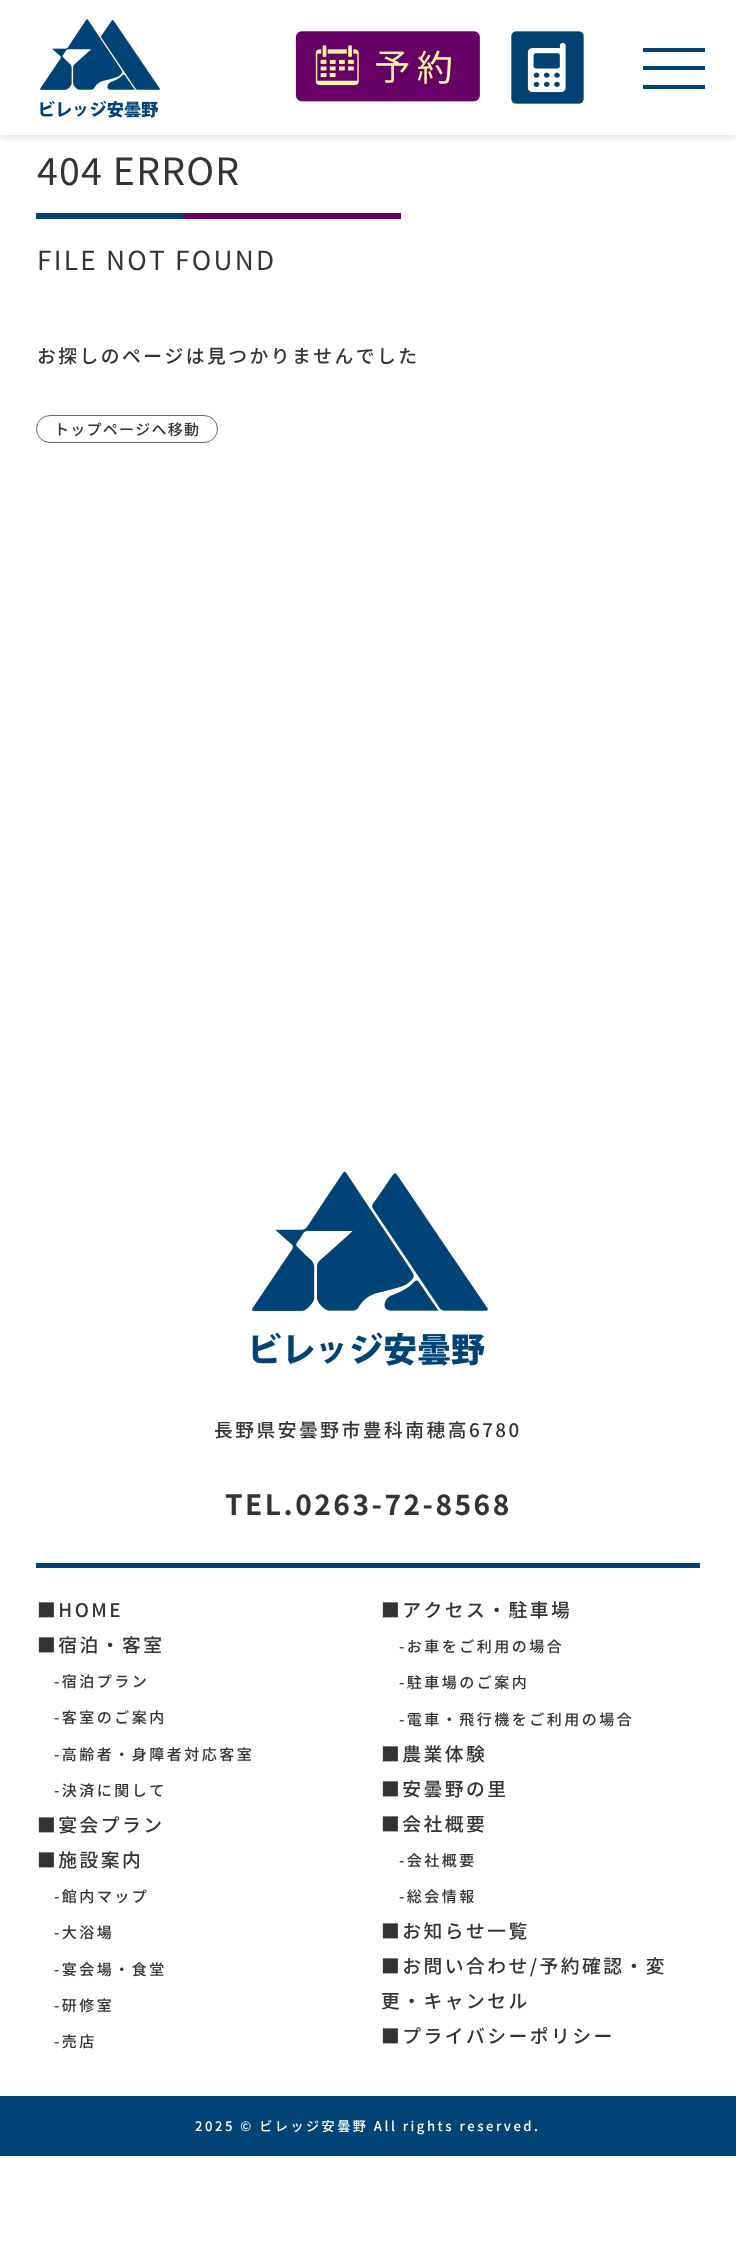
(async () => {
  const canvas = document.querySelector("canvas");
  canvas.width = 736;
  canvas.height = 2258;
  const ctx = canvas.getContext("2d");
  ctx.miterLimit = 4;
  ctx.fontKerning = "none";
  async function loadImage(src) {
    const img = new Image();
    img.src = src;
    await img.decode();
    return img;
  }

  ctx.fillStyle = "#ffffff";
  ctx.fillRect(0, 0, 736, 2258);
  ctx.fillStyle = "rgba(0, 0, 0, 0.1)";
  ctx.filter = "blur(3px)";
  ctx.beginPath();
  ctx.rect(0, 3, 736, 135);
  ctx.fill();
  ctx.filter = "none";
  ctx.fillStyle = "#ffffff";
  ctx.fillRect(0, 0, 736, 135);
  ctx.drawImage(await loadImage("img/1.png"), 40, 19, 120, 99);
  ctx.drawImage(await loadImage("img/2.png"), 295, 31, 185, 71);
  ctx.drawImage(await loadImage("img/3.png"), 511, 31, 73, 73);
  for (const [x, y, w, h, color] of [
    [643, 66, 62, 4, "#004477"],
    [643, 48, 62, 4, "#004477"],
    [643, 85, 62, 4, "#004477"],
    [36, 213, 147, 6, "#004477"],
    [183, 213, 218, 6, "#660066"],
  ]) {
    ctx.fillStyle = color;
    ctx.fillRect(x, y, w, h);
  }
  ctx.beginPath();
  ctx.roundRect(36.5, 415.5, 181, 27, 13.5);
  ctx.strokeStyle = "#666666";
  ctx.stroke();
  ctx.fillStyle = "#004477";
  ctx.fillRect(36, 1563, 664, 5);
  ctx.drawImage(await loadImage("img/4.png"), 252, 1171, 236, 195);
  ctx.fillRect(0, 2096, 736, 60);
  ctx.letterSpacing = "1.25px";
  ctx.font = "37.5px Noto Sans JP";
  ctx.fillStyle = "#333333";
  ctx.fillText("404 ERROR", 37, 185);
  ctx.letterSpacing = "2.25px";
  ctx.font = "26.25px Noto Sans JP";
  ctx.fillText("FILE NOT FOUND", 37, 270);
  ctx.letterSpacing = "2.5px";
  ctx.font = "500 18.75px Noto Sans JP";
  ctx.fillText("お探しのページは見つかりませんでした", 37, 363);
  ctx.letterSpacing = "1.25px";
  ctx.font = "500 15px Noto Sans JP";
  ctx.fillText("トップページへ移動", 54, 435);
  ctx.letterSpacing = "2.5px";
  ctx.font = "500 18.75px Noto Sans JP";
  ctx.fillText("長野県安曇野市豊科南穂高6780", 214, 1437);
  ctx.font = "bold 28.1px Noto Sans JP";
  ctx.fillText("TEL.0263-72-8568", 225, 1515);
  ctx.font = "500 18.75px Noto Sans JP";
  ctx.fillText("■HOME", 37, 1617);
  ctx.fillText("■宿泊・客室", 37, 1652);
  ctx.font = "500 15px Noto Sans JP";
  for (const [text, x, y] of [
    ["-宿泊プラン", 54, 1687],
    ["-客室のご案内", 54, 1723],
    ["-高齢者・身障者対応客室", 54, 1760],
    ["-決済に関して", 54, 1796],
  ]) {
    ctx.fillText(text, x, y);
  }
  ctx.font = "500 18.75px Noto Sans JP";
  ctx.fillText("■宴会プラン", 37, 1832);
  ctx.fillText("■施設案内", 37, 1867);
  ctx.font = "500 15px Noto Sans JP";
  for (const [text, x, y] of [
    ["-館内マップ", 54, 1902],
    ["-大浴場", 54, 1938],
    ["-宴会場・食堂", 54, 1975],
    ["-研修室", 54, 2011],
    ["-売店", 54, 2047],
  ]) {
    ctx.fillText(text, x, y);
  }
  ctx.font = "500 18.75px Noto Sans JP";
  ctx.fillText("■アクセス・駐車場", 381, 1617);
  ctx.font = "500 15px Noto Sans JP";
  for (const [text, x, y] of [
    ["-お車をご利用の場合", 399, 1652],
    ["-駐車場のご案内", 399, 1688],
    ["-電車・飛行機をご利用の場合", 399, 1725],
  ]) {
    ctx.fillText(text, x, y);
  }
  ctx.font = "500 18.75px Noto Sans JP";
  for (const [text, x, y] of [
    ["■農業体験", 381, 1761],
    ["■安曇野の里", 381, 1796],
    ["■会社概要", 381, 1831],
  ]) {
    ctx.fillText(text, x, y);
  }
  ctx.font = "500 15px Noto Sans JP";
  ctx.fillText("-会社概要", 399, 1866);
  ctx.fillText("-総会情報", 399, 1902);
  ctx.font = "500 18.75px Noto Sans JP";
  for (const [text, x, y] of [
    ["■お知らせ一覧", 381, 1938],
    ["■お問い合わせ/予約確認・変", 381, 1973],
    ["更・キャンセル", 381, 2008],
    ["■プライバシーポリシー", 381, 2043],
  ]) {
    ctx.fillText(text, x, y);
  }
  ctx.font = "500 13.1px Noto Sans JP";
  ctx.fillStyle = "#ffffff";
  ctx.fillText("2025 © ビレッジ安曇野 All rights reserved.", 195, 2131);
})();
